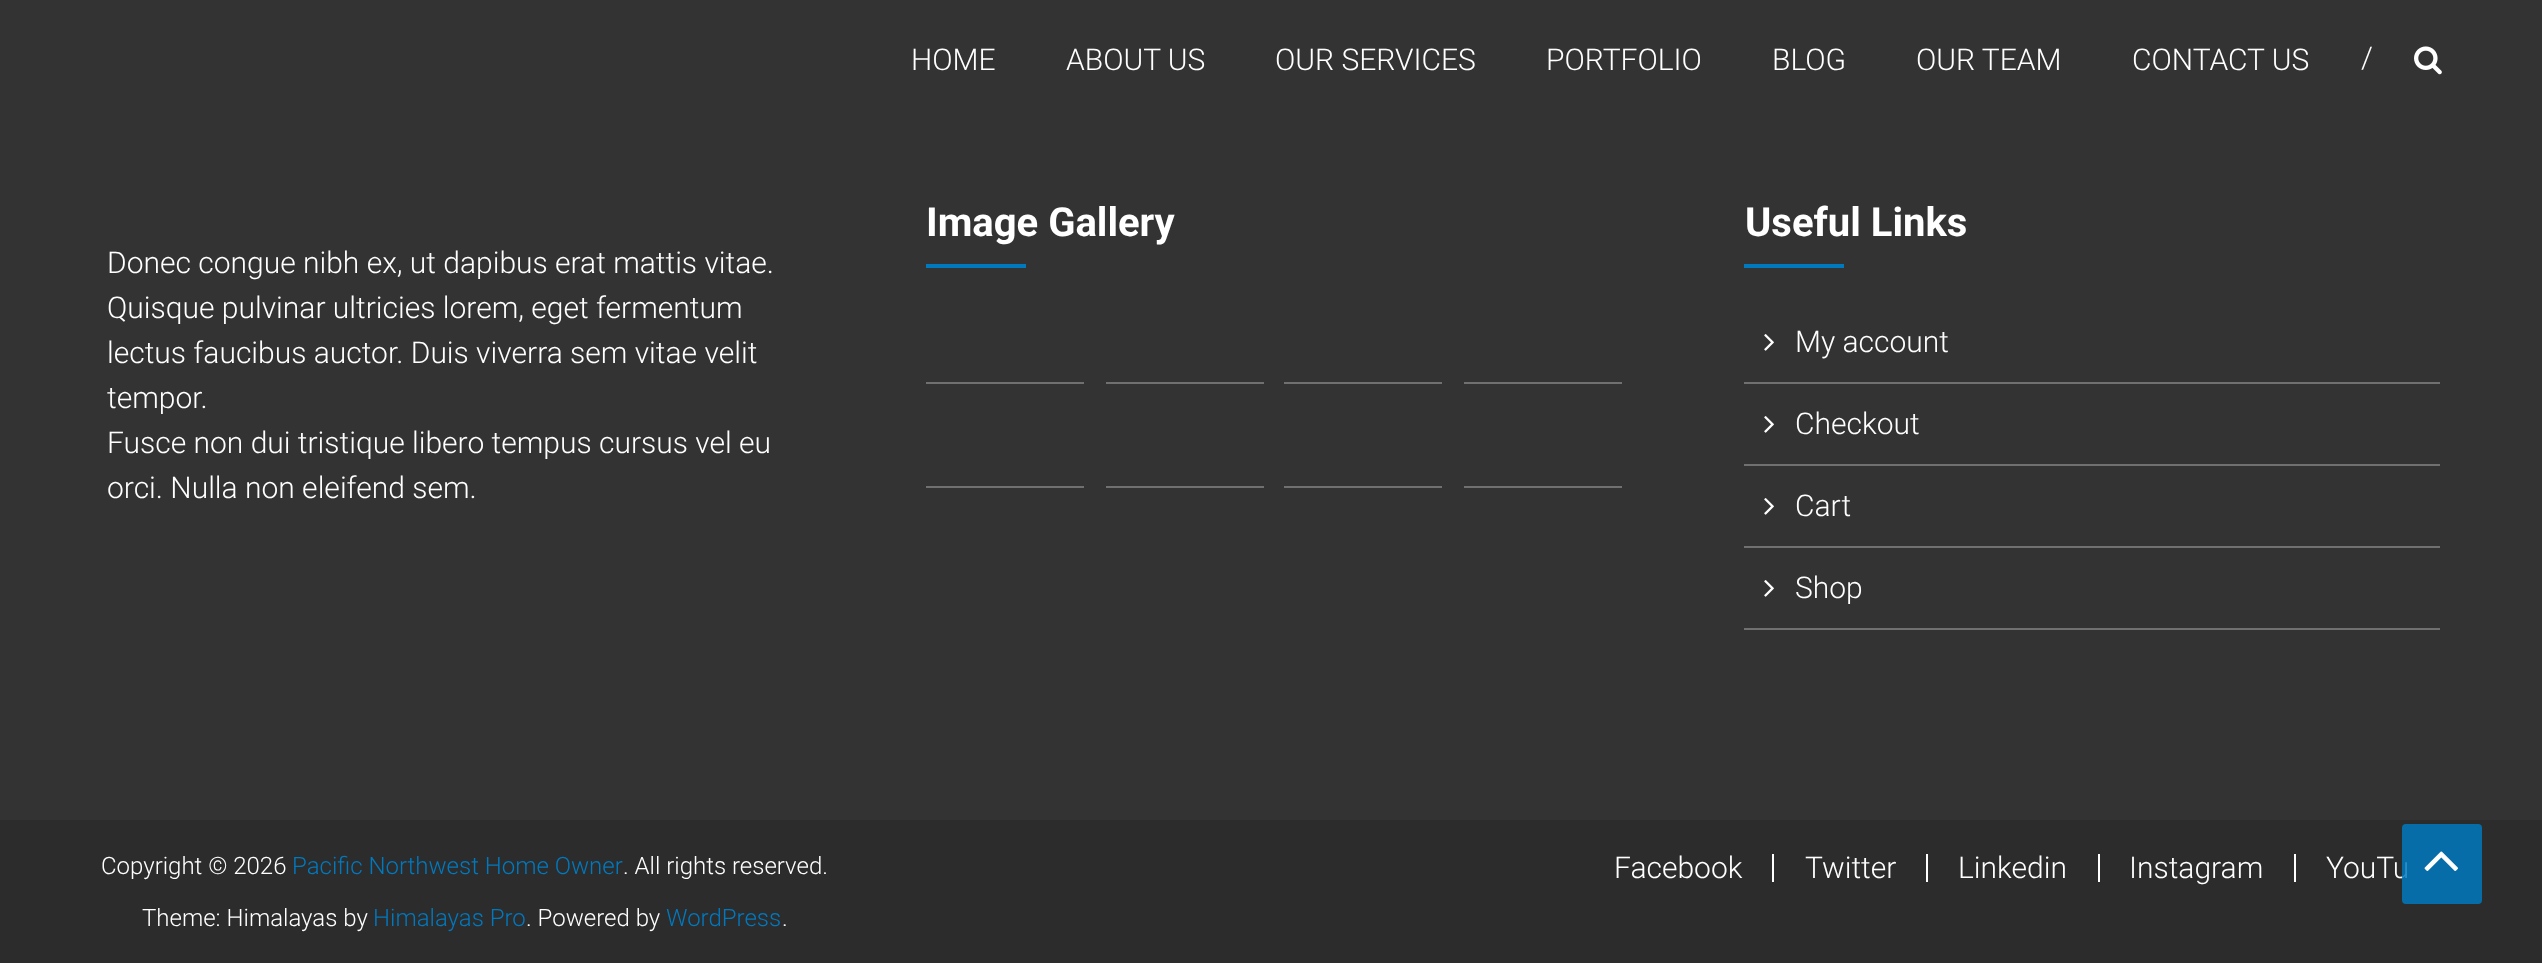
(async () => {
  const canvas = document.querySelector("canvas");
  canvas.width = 2542;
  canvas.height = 963;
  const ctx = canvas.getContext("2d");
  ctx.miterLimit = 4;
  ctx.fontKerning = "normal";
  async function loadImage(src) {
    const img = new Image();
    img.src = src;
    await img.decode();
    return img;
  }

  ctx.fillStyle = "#333333";
  ctx.fillRect(0, 0, 2542, 963);
  ctx.drawImage(await loadImage("img/1.png"), 2414, 46, 28, 29);
  for (const [x, y, w, h, color] of [
    [926, 264, 100, 4, "#0079bf"],
    [926, 382, 158, 2, "#707070"],
    [1106, 382, 158, 2, "#707070"],
    [1284, 382, 158, 2, "#707070"],
    [1464, 382, 158, 2, "#707070"],
    [926, 486, 158, 2, "#707070"],
    [1106, 486, 158, 2, "#707070"],
    [1284, 486, 158, 2, "#707070"],
    [1464, 486, 158, 2, "#707070"],
    [1744, 264, 100, 4, "#0079bf"],
    [1744, 382, 696, 2, "#707070"],
  ]) {
    ctx.fillStyle = color;
    ctx.fillRect(x, y, w, h);
  }
  ctx.drawImage(await loadImage("img/2.png"), 1764, 334, 10, 17);
  ctx.fillRect(1744, 464, 696, 2);
  ctx.drawImage(await loadImage("img/2.png"), 1764, 416, 10, 17);
  ctx.fillRect(1744, 546, 696, 2);
  ctx.drawImage(await loadImage("img/2.png"), 1764, 498, 10, 17);
  ctx.fillRect(1744, 628, 696, 2);
  ctx.drawImage(await loadImage("img/2.png"), 1764, 580, 10, 17);
  for (const [x, y, w, h, color] of [
    [0, 820, 2542, 143, "#2c2c2c"],
    [1772, 854, 2, 28, "#ffffff"],
    [1926, 854, 2, 28, "#ffffff"],
    [2098, 854, 2, 28, "#ffffff"],
    [2294, 854, 2, 28, "#ffffff"],
  ]) {
    ctx.fillStyle = color;
    ctx.fillRect(x, y, w, h);
  }
  ctx.font = "300 30px Roboto";
  for (const [text, x, y] of [
    ["HOME", 911, 70],
    ["ABOUT US", 1066, 70],
    ["OUR SERVICES", 1275, 70],
    ["PORTFOLIO", 1546, 70],
    ["BLOG", 1772, 70],
    ["OUR TEAM", 1916, 70],
    ["CONTACT US", 2132, 70],
    ["/", 2361, 68],
  ]) {
    ctx.fillText(text, x, y);
  }
  ctx.font = "bold 40px Roboto";
  ctx.fillText("Image Gallery", 926, 236);
  ctx.fillText("Useful Links", 1745, 236);
  ctx.font = "300 30px Roboto";
  for (const [text, x, y] of [
    ["My account", 1795, 352],
    ["Checkout", 1795, 434],
    ["Cart", 1795, 516],
    ["Shop", 1795, 598],
    ["Donec congue nibh ex, ut dapibus erat mattis vitae.", 107, 273],
    ["Quisque pulvinar ultricies lorem, eget fermentum", 107, 318],
    ["lectus faucibus auctor. Duis viverra sem vitae velit", 107, 363],
    ["tempor.", 107, 408],
    ["Fusce non dui tristique libero tempus cursus vel eu", 107, 453],
    ["orci. Nulla non eleifend sem.", 107, 498],
  ]) {
    ctx.fillText(text, x, y);
  }
  ctx.font = "300 24px Roboto";
  ctx.fillText("Copyright © 2026", 101, 874);
  ctx.fillStyle = "#0079bf";
  ctx.fillText("Pacific Northwest Home Owner", 292, 874);
  ctx.fillStyle = "#ffffff";
  ctx.fillText(". All rights reserved.", 623, 874);
  ctx.fillText("Theme: Himalayas by", 142, 926);
  ctx.fillStyle = "#0079bf";
  ctx.fillText("Himalayas Pro", 373, 926);
  ctx.fillStyle = "#ffffff";
  ctx.fillText(". Powered by", 526, 926);
  ctx.fillStyle = "#0079bf";
  ctx.fillText("WordPress", 666, 926);
  ctx.fillStyle = "#ffffff";
  ctx.fillText(".", 782, 926);
  ctx.font = "300 30px Roboto";
  for (const [text, x, y] of [
    ["Facebook", 1614, 878],
    ["Twitter", 1805, 878],
    ["Linkedin", 1958, 878],
    ["Instagram", 2129, 878],
    ["YouTu", 2326, 878],
  ]) {
    ctx.fillText(text, x, y);
  }
  ctx.fillStyle = "rgba(0, 121, 191, 0.85)";
  ctx.beginPath();
  ctx.roundRect(2402, 824, 80, 80, 4);
  ctx.fill();
  ctx.drawImage(await loadImage("img/3.png"), 2424, 851, 34, 20);
})();
